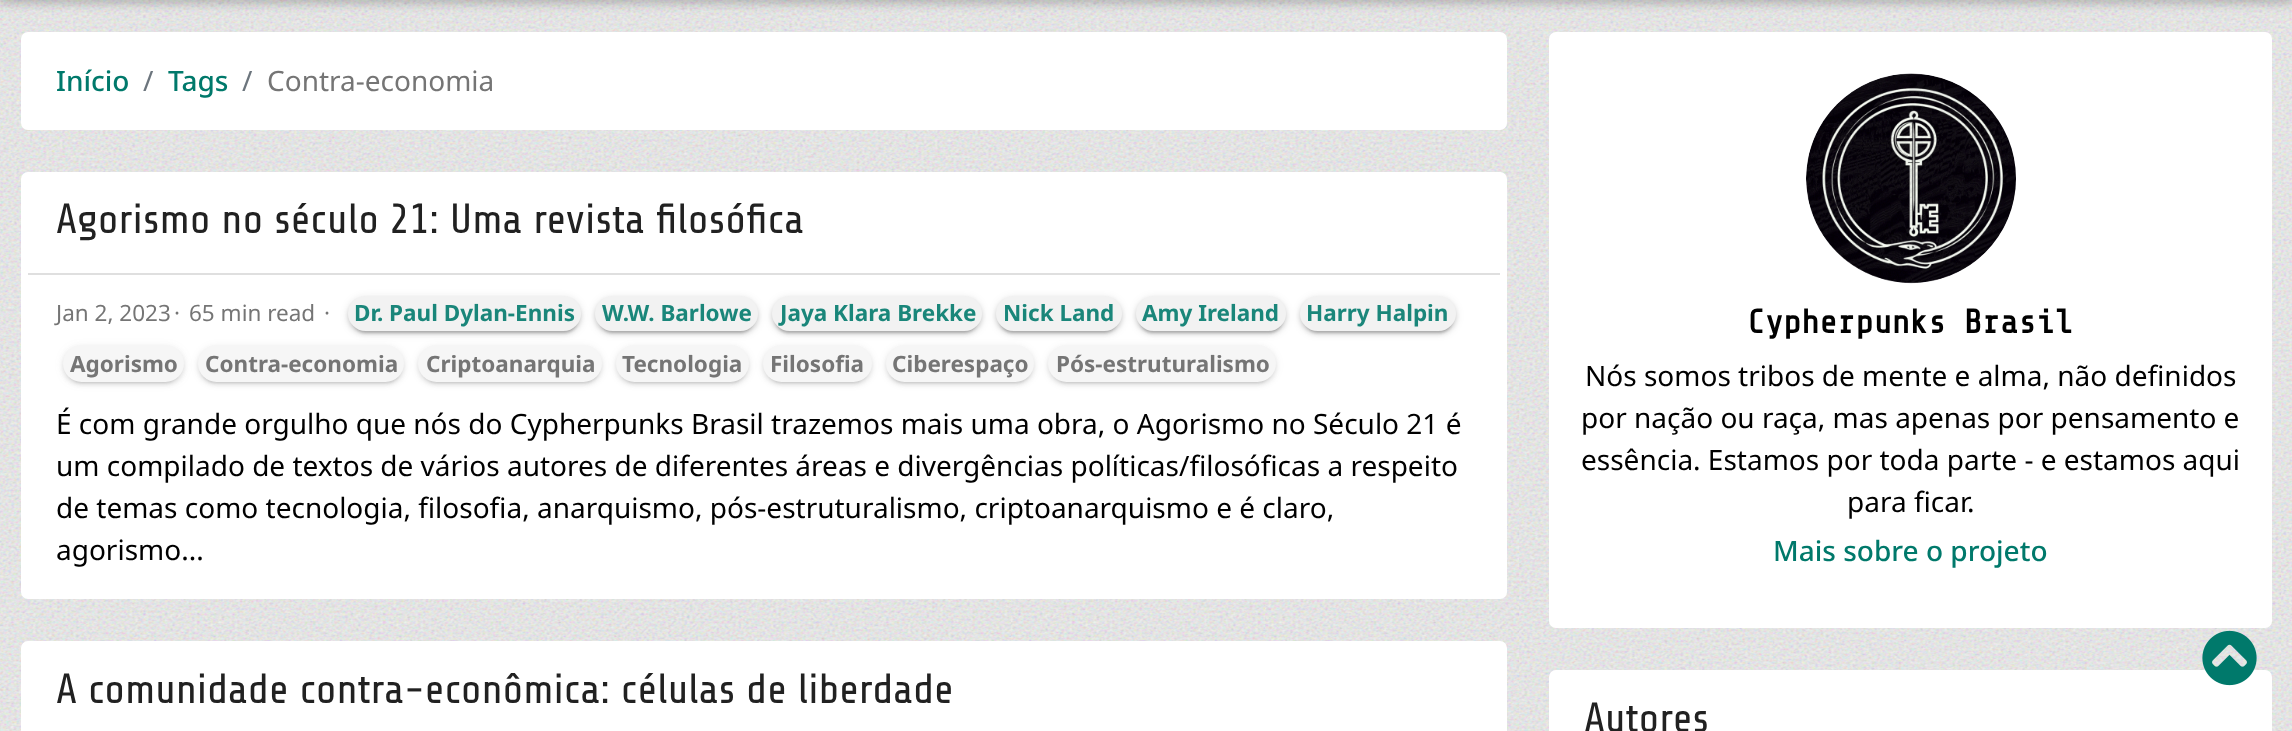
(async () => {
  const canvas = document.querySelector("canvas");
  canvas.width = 2292;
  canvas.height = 731;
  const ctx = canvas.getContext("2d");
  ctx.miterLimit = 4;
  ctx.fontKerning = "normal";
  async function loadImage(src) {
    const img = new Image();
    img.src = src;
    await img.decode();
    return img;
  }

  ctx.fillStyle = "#f0f0f0";
  ctx.fillRect(0, 0, 2292, 731);
  ctx.drawImage(await loadImage("img/1.png"), 0, 0, 2292, 731);
  ctx.fillStyle = "rgba(0, 0, 0, 0.12)";
  ctx.filter = "blur(9px)";
  ctx.beginPath();
  ctx.rect(0, -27, 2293, 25);
  ctx.fill();
  ctx.filter = "none";
  ctx.fillStyle = "rgba(0, 0, 0, 0.14)";
  ctx.filter = "blur(4.5px)";
  ctx.beginPath();
  ctx.rect(0, -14, 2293, 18);
  ctx.fill();
  ctx.filter = "none";
  ctx.fillStyle = "#ffffff";
  ctx.beginPath();
  ctx.roundRect(21, 32, 1486, 98, 7);
  ctx.fill();
  ctx.beginPath();
  ctx.roundRect(21, 172, 1486, 427, 7);
  ctx.fill();
  ctx.fillStyle = "#dfdfdf";
  ctx.fillRect(28, 273, 1472, 2);
  ctx.fillStyle = "rgba(26, 26, 26, 0.12)";
  ctx.filter = "blur(4.5px)";
  ctx.beginPath();
  ctx.roundRect(348, 298, 233, 35, 17.5);
  ctx.fill();
  ctx.filter = "none";
  ctx.fillStyle = "rgba(26, 26, 26, 0.14)";
  ctx.filter = "blur(2px)";
  ctx.beginPath();
  ctx.roundRect(348, 299, 233, 35, 17.5);
  ctx.fill();
  ctx.filter = "none";
  ctx.fillStyle = "rgba(26, 26, 26, 0.2)";
  ctx.filter = "blur(1px)";
  ctx.beginPath();
  ctx.roundRect(352, 305, 226, 28, 14);
  ctx.fill();
  ctx.filter = "none";
  ctx.fillStyle = "#f2f2f2";
  ctx.beginPath();
  ctx.roundRect(348, 296, 233, 35, 17.5);
  ctx.fill();
  ctx.fillStyle = "rgba(0, 0, 0, 0.11)";
  ctx.filter = "blur(4.5px)";
  ctx.beginPath();
  ctx.roundRect(595, 298, 163, 35, 17.5);
  ctx.fill();
  ctx.filter = "none";
  ctx.fillStyle = "rgba(25, 25, 25, 0.14)";
  ctx.filter = "blur(2px)";
  ctx.beginPath();
  ctx.roundRect(595, 299, 163, 35, 17.5);
  ctx.fill();
  ctx.filter = "none";
  ctx.fillStyle = "rgba(26, 26, 26, 0.2)";
  ctx.filter = "blur(1px)";
  ctx.beginPath();
  ctx.roundRect(599, 305, 155, 28, 14);
  ctx.fill();
  ctx.filter = "none";
  ctx.fillStyle = "#f2f2f2";
  ctx.beginPath();
  ctx.roundRect(595, 296, 163, 35, 17.5);
  ctx.fill();
  ctx.fillStyle = "rgba(0, 0, 0, 0.11)";
  ctx.filter = "blur(4.5px)";
  ctx.beginPath();
  ctx.roundRect(772, 298, 210, 35, 17.5);
  ctx.fill();
  ctx.filter = "none";
  ctx.fillStyle = "rgba(25, 25, 25, 0.14)";
  ctx.filter = "blur(2px)";
  ctx.beginPath();
  ctx.roundRect(772, 299, 210, 35, 17.5);
  ctx.fill();
  ctx.filter = "none";
  ctx.fillStyle = "rgba(26, 26, 26, 0.2)";
  ctx.filter = "blur(1px)";
  ctx.beginPath();
  ctx.roundRect(775, 305, 203, 28, 14);
  ctx.fill();
  ctx.filter = "none";
  ctx.fillStyle = "#f2f2f2";
  ctx.beginPath();
  ctx.roundRect(772, 296, 210, 35, 17.5);
  ctx.fill();
  ctx.fillStyle = "rgba(0, 0, 0, 0.11)";
  ctx.filter = "blur(4.5px)";
  ctx.beginPath();
  ctx.roundRect(996, 298, 126, 35, 17.5);
  ctx.fill();
  ctx.filter = "none";
  ctx.fillStyle = "rgba(25, 25, 25, 0.14)";
  ctx.filter = "blur(2px)";
  ctx.beginPath();
  ctx.roundRect(996, 299, 126, 35, 17.5);
  ctx.fill();
  ctx.filter = "none";
  ctx.fillStyle = "rgba(26, 26, 26, 0.2)";
  ctx.filter = "blur(1px)";
  ctx.beginPath();
  ctx.roundRect(999, 305, 119, 28, 14);
  ctx.fill();
  ctx.filter = "none";
  ctx.fillStyle = "#f2f2f2";
  ctx.beginPath();
  ctx.roundRect(996, 296, 126, 35, 17.5);
  ctx.fill();
  ctx.fillStyle = "rgba(0, 0, 0, 0.11)";
  ctx.filter = "blur(4.5px)";
  ctx.beginPath();
  ctx.roundRect(1136, 298, 150, 35, 17.5);
  ctx.fill();
  ctx.filter = "none";
  ctx.fillStyle = "rgba(25, 25, 25, 0.14)";
  ctx.filter = "blur(2px)";
  ctx.beginPath();
  ctx.roundRect(1136, 299, 150, 35, 17.5);
  ctx.fill();
  ctx.filter = "none";
  ctx.fillStyle = "rgba(26, 26, 26, 0.2)";
  ctx.filter = "blur(1px)";
  ctx.beginPath();
  ctx.roundRect(1139, 305, 144, 28, 14);
  ctx.fill();
  ctx.filter = "none";
  ctx.fillStyle = "#f2f2f2";
  ctx.beginPath();
  ctx.roundRect(1136, 296, 150, 35, 17.5);
  ctx.fill();
  ctx.fillStyle = "rgba(0, 0, 0, 0.11)";
  ctx.filter = "blur(4.5px)";
  ctx.beginPath();
  ctx.roundRect(1300, 298, 156, 35, 17.5);
  ctx.fill();
  ctx.filter = "none";
  ctx.fillStyle = "rgba(25, 25, 25, 0.14)";
  ctx.filter = "blur(2px)";
  ctx.beginPath();
  ctx.roundRect(1300, 299, 156, 35, 17.5);
  ctx.fill();
  ctx.filter = "none";
  ctx.fillStyle = "rgba(26, 26, 26, 0.2)";
  ctx.filter = "blur(1px)";
  ctx.beginPath();
  ctx.roundRect(1304, 305, 149, 28, 14);
  ctx.fill();
  ctx.filter = "none";
  ctx.fillStyle = "#f2f2f2";
  ctx.beginPath();
  ctx.roundRect(1300, 296, 156, 35, 17.5);
  ctx.fill();
  ctx.fillStyle = "rgba(102, 102, 102, 0.12)";
  ctx.filter = "blur(4.5px)";
  ctx.beginPath();
  ctx.roundRect(63, 347, 121, 36, 18);
  ctx.fill();
  ctx.filter = "none";
  ctx.fillStyle = "rgba(102, 102, 102, 0.14)";
  ctx.filter = "blur(2px)";
  ctx.beginPath();
  ctx.roundRect(63, 348, 121, 37, 18.5);
  ctx.fill();
  ctx.filter = "none";
  ctx.fillStyle = "rgba(102, 102, 102, 0.2)";
  ctx.filter = "blur(1px)";
  ctx.beginPath();
  ctx.roundRect(67, 354, 113, 29, 14.5);
  ctx.fill();
  ctx.filter = "none";
  ctx.fillStyle = "#f6f6f6";
  ctx.beginPath();
  ctx.roundRect(63, 345, 121, 37, 18.5);
  ctx.fill();
  ctx.fillStyle = "rgba(0, 0, 0, 0.07)";
  ctx.filter = "blur(4.5px)";
  ctx.beginPath();
  ctx.roundRect(198, 347, 206, 36, 18);
  ctx.fill();
  ctx.filter = "none";
  ctx.fillStyle = "rgba(102, 102, 102, 0.14)";
  ctx.filter = "blur(2px)";
  ctx.beginPath();
  ctx.roundRect(198, 348, 206, 37, 18.5);
  ctx.fill();
  ctx.filter = "none";
  ctx.fillStyle = "rgba(102, 102, 102, 0.2)";
  ctx.filter = "blur(1px)";
  ctx.beginPath();
  ctx.roundRect(201, 354, 200, 29, 14.5);
  ctx.fill();
  ctx.filter = "none";
  ctx.fillStyle = "#f6f6f6";
  ctx.beginPath();
  ctx.roundRect(198, 345, 206, 37, 18.5);
  ctx.fill();
  ctx.fillStyle = "rgba(0, 0, 0, 0.07)";
  ctx.filter = "blur(4.5px)";
  ctx.beginPath();
  ctx.roundRect(418, 347, 184, 36, 18);
  ctx.fill();
  ctx.filter = "none";
  ctx.fillStyle = "rgba(102, 102, 102, 0.14)";
  ctx.filter = "blur(2px)";
  ctx.beginPath();
  ctx.roundRect(418, 348, 184, 37, 18.5);
  ctx.fill();
  ctx.filter = "none";
  ctx.fillStyle = "rgba(102, 102, 102, 0.2)";
  ctx.filter = "blur(1px)";
  ctx.beginPath();
  ctx.roundRect(422, 354, 177, 29, 14.5);
  ctx.fill();
  ctx.filter = "none";
  ctx.fillStyle = "#f6f6f6";
  ctx.beginPath();
  ctx.roundRect(418, 345, 184, 37, 18.5);
  ctx.fill();
  ctx.fillStyle = "rgba(0, 0, 0, 0.07)";
  ctx.filter = "blur(4.5px)";
  ctx.beginPath();
  ctx.roundRect(616, 347, 133, 36, 18);
  ctx.fill();
  ctx.filter = "none";
  ctx.fillStyle = "rgba(102, 102, 102, 0.14)";
  ctx.filter = "blur(2px)";
  ctx.beginPath();
  ctx.roundRect(616, 348, 133, 37, 18.5);
  ctx.fill();
  ctx.filter = "none";
  ctx.fillStyle = "rgba(102, 102, 102, 0.2)";
  ctx.filter = "blur(1px)";
  ctx.beginPath();
  ctx.roundRect(620, 354, 126, 29, 14.5);
  ctx.fill();
  ctx.filter = "none";
  ctx.fillStyle = "#f6f6f6";
  ctx.beginPath();
  ctx.roundRect(616, 345, 133, 37, 18.5);
  ctx.fill();
  ctx.fillStyle = "rgba(0, 0, 0, 0.07)";
  ctx.filter = "blur(4.5px)";
  ctx.beginPath();
  ctx.roundRect(763, 347, 109, 36, 18);
  ctx.fill();
  ctx.filter = "none";
  ctx.fillStyle = "rgba(102, 102, 102, 0.14)";
  ctx.filter = "blur(2px)";
  ctx.beginPath();
  ctx.roundRect(763, 348, 109, 37, 18.5);
  ctx.fill();
  ctx.filter = "none";
  ctx.fillStyle = "rgba(102, 102, 102, 0.2)";
  ctx.filter = "blur(1px)";
  ctx.beginPath();
  ctx.roundRect(767, 354, 101, 29, 14.5);
  ctx.fill();
  ctx.filter = "none";
  ctx.fillStyle = "#f6f6f6";
  ctx.beginPath();
  ctx.roundRect(763, 345, 109, 37, 18.5);
  ctx.fill();
  ctx.fillStyle = "rgba(0, 0, 0, 0.07)";
  ctx.filter = "blur(4.5px)";
  ctx.beginPath();
  ctx.roundRect(886, 347, 148, 36, 18);
  ctx.fill();
  ctx.filter = "none";
  ctx.fillStyle = "rgba(102, 102, 102, 0.14)";
  ctx.filter = "blur(2px)";
  ctx.beginPath();
  ctx.roundRect(886, 348, 148, 37, 18.5);
  ctx.fill();
  ctx.filter = "none";
  ctx.fillStyle = "rgba(102, 102, 102, 0.2)";
  ctx.filter = "blur(1px)";
  ctx.beginPath();
  ctx.roundRect(889, 354, 142, 29, 14.5);
  ctx.fill();
  ctx.filter = "none";
  ctx.fillStyle = "#f6f6f6";
  ctx.beginPath();
  ctx.roundRect(886, 345, 148, 37, 18.5);
  ctx.fill();
  ctx.fillStyle = "rgba(0, 0, 0, 0.07)";
  ctx.filter = "blur(4.5px)";
  ctx.beginPath();
  ctx.roundRect(1048, 347, 228, 36, 18);
  ctx.fill();
  ctx.filter = "none";
  ctx.fillStyle = "rgba(102, 102, 102, 0.14)";
  ctx.filter = "blur(2px)";
  ctx.beginPath();
  ctx.roundRect(1048, 348, 228, 37, 18.5);
  ctx.fill();
  ctx.filter = "none";
  ctx.fillStyle = "rgba(102, 102, 102, 0.2)";
  ctx.filter = "blur(1px)";
  ctx.beginPath();
  ctx.roundRect(1052, 354, 220, 29, 14.5);
  ctx.fill();
  ctx.filter = "none";
  ctx.fillStyle = "#f6f6f6";
  ctx.beginPath();
  ctx.roundRect(1048, 345, 228, 37, 18.5);
  ctx.fill();
  ctx.fillStyle = "#ffffff";
  ctx.beginPath();
  ctx.roundRect(21, 641, 1486, 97, 7);
  ctx.fill();
  ctx.beginPath();
  ctx.roundRect(1549, 32, 723, 596, 7);
  ctx.fill();
  ctx.drawImage(await loadImage("img/2.png"), 1806, 73, 210, 211);
  ctx.beginPath();
  ctx.roundRect(1549, 670, 723, 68, 7);
  ctx.fill();
  ctx.drawImage(await loadImage("img/3.png"), 2202, 630, 55, 56);
  ctx.font = "500 28px Noto Sans";
  ctx.fillStyle = "#00796b";
  ctx.fillText("Início", 56, 91);
  ctx.font = "28px Noto Sans";
  ctx.fillStyle = "#6c757d";
  ctx.fillText("/", 143, 91);
  ctx.font = "500 28px Noto Sans";
  ctx.fillStyle = "#00796b";
  ctx.fillText("Tags", 168, 91);
  ctx.font = "28px Noto Sans";
  ctx.fillStyle = "#6c757d";
  ctx.fillText("/", 242, 91);
  ctx.fillStyle = "#757575";
  ctx.fillText("Contra-economia", 267, 91);
  ctx.font = "42px Share Tech";
  ctx.fillStyle = "#212121";
  ctx.fillText("Agorismo no século 21: Uma revista filosófica", 56, 233);
  ctx.font = "bold 22.5px Noto Sans";
  ctx.fillStyle = "#1a867a";
  for (const [text, x, y] of [
    ["Dr. Paul Dylan-Ennis", 354, 321],
    ["W.W. Barlowe", 602, 321],
    ["Jaya Klara Brekke", 780, 321],
    ["Nick Land", 1003, 321],
    ["Amy Ireland", 1142, 321],
    ["Harry Halpin", 1306, 321],
  ]) {
    ctx.fillText(text, x, y);
  }
  ctx.fillStyle = "#757575";
  for (const [text, x, y] of [
    ["Agorismo", 70, 372],
    ["Contra-economia", 205, 372],
    ["Criptoanarquia", 426, 372],
    ["Tecnologia", 622, 372],
    ["Filosofia", 770, 372],
    ["Ciberespaço", 892, 372],
    ["Pós-estruturalismo", 1056, 372],
  ]) {
    ctx.fillText(text, x, y);
  }
  ctx.font = "22.5px Noto Sans";
  for (const [text, x, y] of [
    ["Jan 2, 2023", 56, 321],
    ["·", 174, 321],
    ["65 min read", 189, 321],
    ["·", 324, 321],
  ]) {
    ctx.fillText(text, x, y);
  }
  ctx.font = "28px Noto Sans";
  ctx.fillStyle = "#000000";
  for (const [text, x, y] of [
    ["É com grande orgulho que nós do Cypherpunks Brasil trazemos mais uma obra, o Agorismo no Século 21 é", 56, 434],
    ["um compilado de textos de vários autores de diferentes áreas e divergências políticas/filosóficas a respeito", 56, 476],
    ["de temas como tecnologia, filosofia, anarquismo, pós-estruturalismo, criptoanarquismo e é claro,", 56, 518],
    ["agorismo...", 56, 560],
  ]) {
    ctx.fillText(text, x, y);
  }
  ctx.font = "42px Share Tech";
  ctx.fillStyle = "#212121";
  ctx.fillText("A comunidade contra-econômica: células de liberdade", 56, 703);
  ctx.font = "bold 33.5px Share Tech Mono";
  ctx.fillStyle = "#000000";
  ctx.fillText("Cypherpunks Brasil", 1747, 333);
  ctx.font = "28px Noto Sans";
  for (const [text, x, y] of [
    ["Nós somos tribos de mente e alma, não definidos", 1585, 386],
    ["por nação ou raça, mas apenas por pensamento e", 1581, 428],
    ["essência. Estamos por toda parte - e estamos aqui", 1581, 470],
    ["para ficar.", 1847, 512],
  ]) {
    ctx.fillText(text, x, y);
  }
  ctx.font = "500 28px Noto Sans";
  ctx.fillStyle = "#00796b";
  ctx.fillText("Mais sobre o projeto", 1773, 561);
  ctx.font = "42px Share Tech";
  ctx.fillStyle = "#212121";
  ctx.fillText("Autores", 1584, 732);
})();
